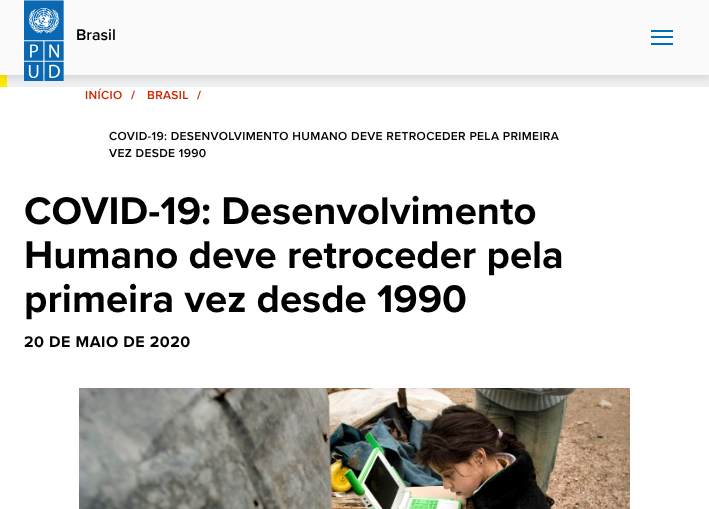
(async () => {
  const canvas = document.querySelector("canvas");
  canvas.width = 709;
  canvas.height = 509;
  const ctx = canvas.getContext("2d");
  ctx.miterLimit = 4;
  ctx.fontKerning = "normal";
  async function loadImage(src) {
    const img = new Image();
    img.src = src;
    await img.decode();
    return img;
  }

  ctx.fillStyle = "#ffffff";
  ctx.fillRect(0, 0, 709, 509);
  ctx.fillStyle = "#edeff0";
  ctx.fillRect(7, 75, 702, 12);
  ctx.fillStyle = "#ffeb00";
  ctx.fillRect(0, 75, 7, 12);
  ctx.fillStyle = "rgba(0, 0, 0, 0.1)";
  ctx.filter = "blur(3px)";
  ctx.beginPath();
  ctx.rect(0, 3, 709, 75);
  ctx.fill();
  ctx.filter = "none";
  ctx.fillStyle = "#fafafa";
  ctx.fillRect(0, 1, 709, 74);
  ctx.drawImage(await loadImage("img/1.png"), 24, 0, 40, 81);
  for (const [x, y, w, h, color] of [
    [651, 30, 22, 2, "#006eb5"],
    [651, 36, 22, 2, "#006eb5"],
    [651, 43, 22, 2, "#006eb5"],
  ]) {
    ctx.fillStyle = color;
    ctx.fillRect(x, y, w, h);
  }
  ctx.drawImage(await loadImage("img/2.png"), 79, 388, 551, 121);
  ctx.font = "600 16px Proxima Nova";
  ctx.fillStyle = "#000000";
  ctx.fillText("Brasil", 76, 40);
  ctx.letterSpacing = "0.35px";
  ctx.font = "600 12px Proxima Nova";
  ctx.fillStyle = "#d12800";
  ctx.fillText("INÍCIO", 85, 99);
  ctx.letterSpacing = "0px";
  ctx.font = "bold 12px Proxima Nova";
  ctx.fillText("/", 131, 99);
  ctx.letterSpacing = "0.35px";
  ctx.font = "600 12px Proxima Nova";
  ctx.fillText("BRASIL", 147, 99);
  ctx.letterSpacing = "0px";
  ctx.font = "bold 12px Proxima Nova";
  ctx.fillText("/", 197, 99);
  ctx.letterSpacing = "0.35px";
  ctx.font = "600 12px Proxima Nova";
  ctx.fillStyle = "#000000";
  ctx.fillText("COVID-19: DESENVOLVIMENTO HUMANO DEVE RETROCEDER PELA PRIMEIRA", 109, 140);
  ctx.fillText("VEZ DESDE 1990", 109, 157);
  ctx.letterSpacing = "0px";
  ctx.font = "bold 40px Proxima Nova";
  for (const [text, x, y] of [
    ["COVID-19: Desenvolvimento", 24, 224],
    ["Humano deve retroceder pela", 24, 268],
    ["primeira vez desde 1990", 24, 312],
  ]) {
    ctx.fillText(text, x, y);
  }
  ctx.letterSpacing = "0.5px";
  ctx.font = "bold 16px Proxima Nova";
  ctx.fillText("20 DE MAIO DE 2020", 24, 347);
})();
